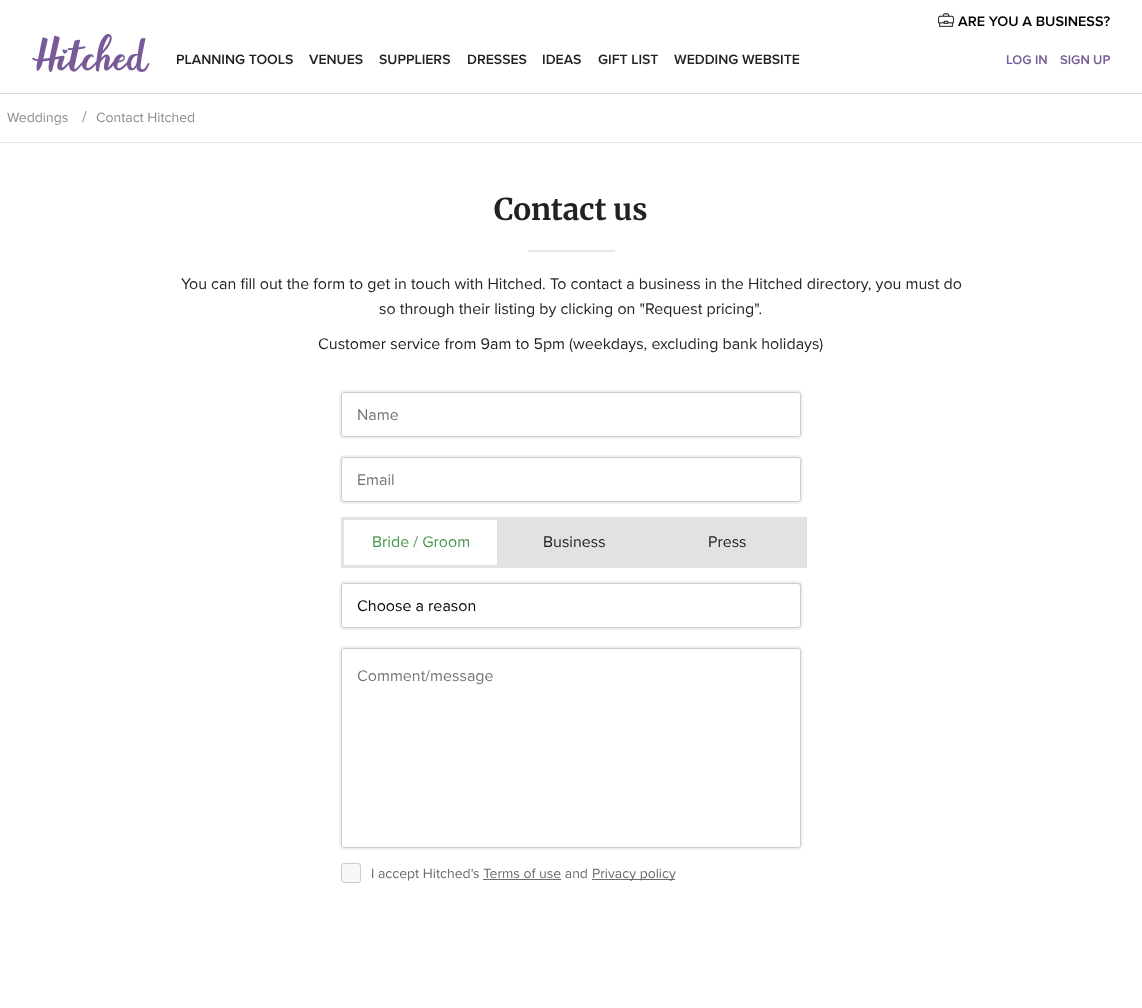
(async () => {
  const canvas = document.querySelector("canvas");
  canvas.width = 1142;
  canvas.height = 1008;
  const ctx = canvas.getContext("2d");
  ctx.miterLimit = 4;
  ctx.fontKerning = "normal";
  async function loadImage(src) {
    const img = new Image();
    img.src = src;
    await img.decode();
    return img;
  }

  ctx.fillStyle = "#ffffff";
  ctx.fillRect(0, 0, 1142, 1008);
  ctx.drawImage(await loadImage("img/1.png"), 938, 13, 16, 14);
  ctx.drawImage(await loadImage("img/2.png"), 32, 34, 118, 38);
  for (const [x, y, w, h, color] of [
    [0, 93, 1142, 1, "#d9d9d9"],
    [0, 142, 1142, 1, "#e7e7e7"],
    [528, 250, 87, 2, "#e7e7e7"],
  ]) {
    ctx.fillStyle = color;
    ctx.fillRect(x, y, w, h);
  }
  ctx.beginPath();
  ctx.roundRect(340, 391, 462, 47, 4);
  ctx.strokeStyle = "#f0f0f0";
  ctx.lineWidth = 2;
  ctx.stroke();
  ctx.fillStyle = "#ffffff";
  ctx.beginPath();
  ctx.roundRect(341.5, 392.5, 459, 44, 2.5);
  ctx.fill();
  ctx.strokeStyle = "#cccccc";
  ctx.lineWidth = 1;
  ctx.stroke();
  ctx.beginPath();
  ctx.roundRect(340, 456, 462, 47, 4);
  ctx.strokeStyle = "#f0f0f0";
  ctx.lineWidth = 2;
  ctx.stroke();
  ctx.beginPath();
  ctx.roundRect(341.5, 457.5, 459, 44, 2.5);
  ctx.fill();
  ctx.strokeStyle = "#cccccc";
  ctx.lineWidth = 1;
  ctx.stroke();
  ctx.fillStyle = "#e2e2e2";
  ctx.fillRect(341, 517, 466, 51);
  ctx.fillStyle = "#ffffff";
  ctx.fillRect(344, 520, 153, 45);
  ctx.beginPath();
  ctx.roundRect(340, 582, 462, 47, 4);
  ctx.strokeStyle = "#f0f0f0";
  ctx.lineWidth = 2;
  ctx.stroke();
  ctx.beginPath();
  ctx.roundRect(341.5, 583.5, 459, 44, 2.5);
  ctx.fill();
  ctx.strokeStyle = "#cccccc";
  ctx.lineWidth = 1;
  ctx.stroke();
  ctx.beginPath();
  ctx.roundRect(340, 647, 462, 202, 4);
  ctx.strokeStyle = "#f0f0f0";
  ctx.lineWidth = 2;
  ctx.stroke();
  ctx.beginPath();
  ctx.roundRect(341.5, 648.5, 459, 199, 2.5);
  ctx.fill();
  ctx.strokeStyle = "#cccccc";
  ctx.lineWidth = 1;
  ctx.stroke();
  ctx.fillStyle = "#f8f8f8";
  ctx.beginPath();
  ctx.roundRect(341.5, 863.5, 19, 19, 2.5);
  ctx.fill();
  ctx.stroke();
  ctx.fillStyle = "#6c6c6c";
  ctx.fillRect(592, 879, 83, 1);
  ctx.fillRect(483, 879, 78, 1);
  ctx.font = "600 14.4px Proxima Nova";
  ctx.fillStyle = "#000000";
  ctx.fillText("ARE YOU A BUSINESS?", 958, 26);
  ctx.font = "600 14px Proxima Nova";
  ctx.fillStyle = "#222222";
  for (const [text, x, y] of [
    ["PLANNING TOOLS", 176, 64],
    ["VENUES", 309, 64],
    ["SUPPLIERS", 379, 64],
    ["DRESSES", 467, 64],
    ["IDEAS", 542, 64],
    ["GIFT LIST", 598, 64],
    ["WEDDING WEBSITE", 674, 64],
  ]) {
    ctx.fillText(text, x, y);
  }
  ctx.font = "600 13px Proxima Nova";
  ctx.fillStyle = "#775a97";
  ctx.fillText("LOG IN", 1006, 64);
  ctx.fillText("SIGN UP", 1060, 64);
  ctx.font = "14px Proxima Nova";
  ctx.fillStyle = "#8c8c8c";
  ctx.fillText("Weddings", 7, 122);
  ctx.font = "16px Proxima Nova";
  ctx.fillText("/", 82, 122);
  ctx.font = "14px Proxima Nova";
  ctx.fillText("Contact Hitched", 96, 122);
  ctx.font = "bold 30px Merriweather";
  ctx.fillStyle = "#222222";
  ctx.fillText("Contact us", 494, 220);
  ctx.font = "16px Proxima Nova";
  for (const [text, x, y] of [
    ["You can fill out the form to get in touch with Hitched. To contact a business in the Hitched directory, you must do", 181, 289],
    ["so through their listing by clicking on \"Request pricing\".", 379, 314],
    ["Customer service from 9am to 5pm (weekdays, excluding bank holidays)", 318, 349],
  ]) {
    ctx.fillText(text, x, y);
  }
  ctx.fillStyle = "#757575";
  ctx.fillText("Name", 357, 420);
  ctx.fillText("Email", 357, 485);
  ctx.fillStyle = "#48964d";
  ctx.fillText("Bride / Groom", 372, 547);
  ctx.fillStyle = "#222222";
  ctx.fillText("Business", 543, 547);
  ctx.fillText("Press", 708, 547);
  ctx.fillStyle = "#000000";
  ctx.fillText("Choose a reason", 357, 611);
  ctx.fillStyle = "#757575";
  ctx.fillText("Comment/message", 357, 681);
  ctx.font = "14px Proxima Nova";
  ctx.fillStyle = "#6c6c6c";
  ctx.fillText("I accept Hitched's Terms of use and", 371, 878);
  ctx.fillText("Privacy policy", 592, 878);
})();
